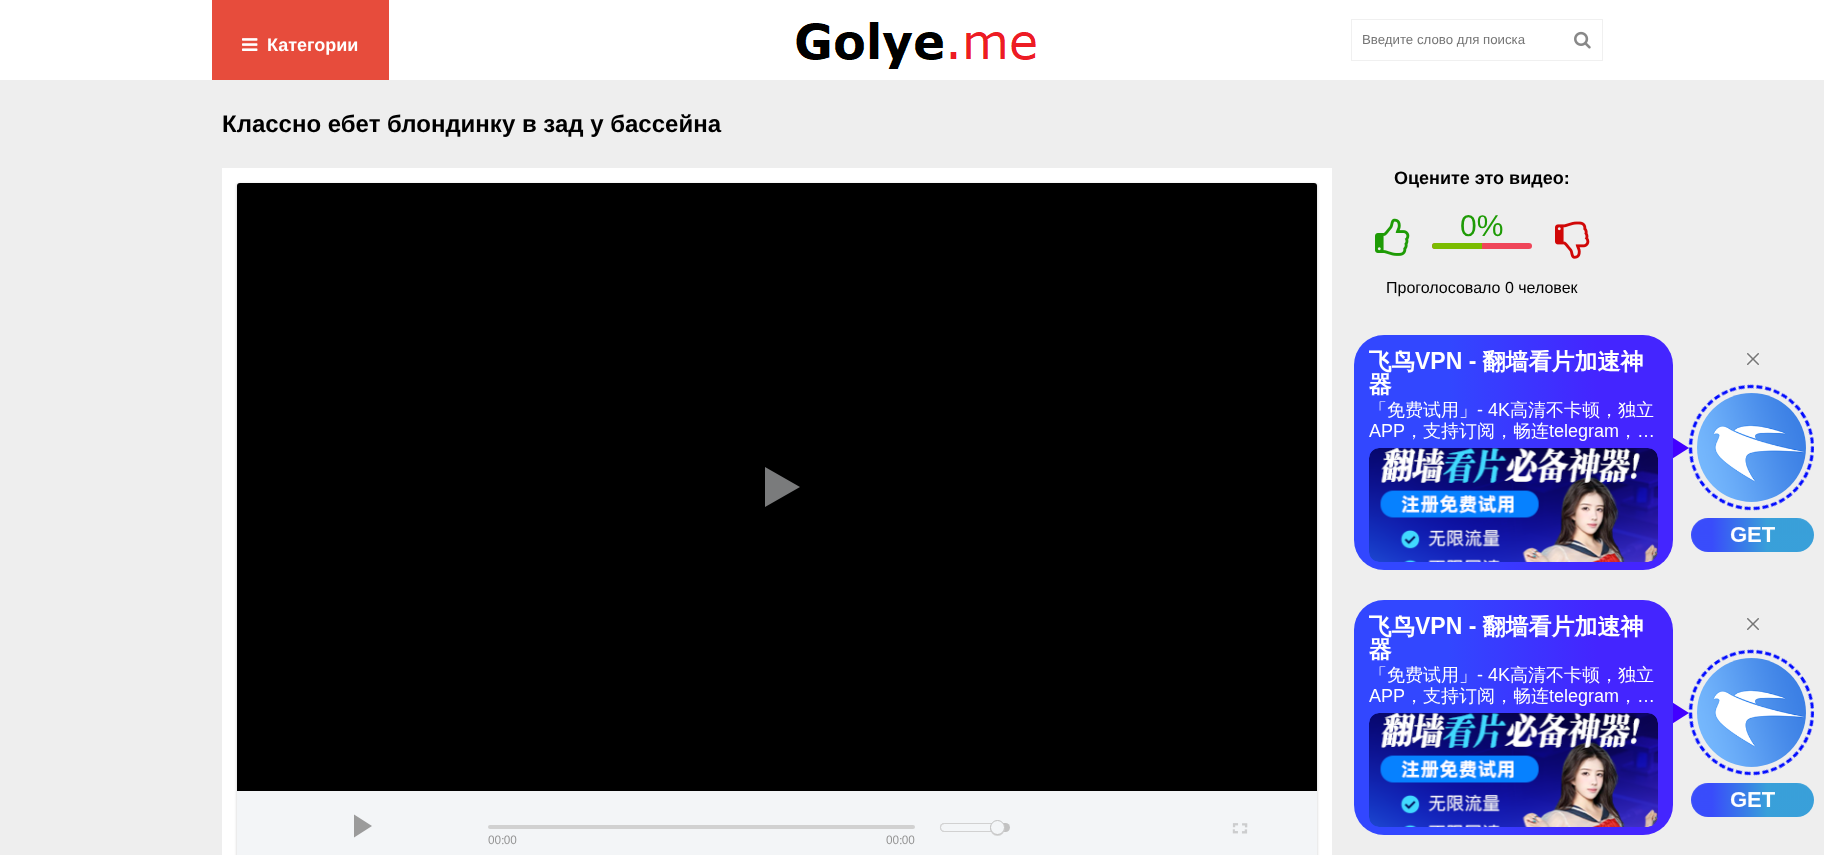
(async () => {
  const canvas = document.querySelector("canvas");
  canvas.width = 1824;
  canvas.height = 855;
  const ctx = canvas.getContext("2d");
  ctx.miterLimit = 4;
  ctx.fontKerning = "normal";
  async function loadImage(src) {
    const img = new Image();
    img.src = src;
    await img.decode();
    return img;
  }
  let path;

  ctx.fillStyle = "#ffffff";
  ctx.fillRect(0, 0, 1824, 855);
  ctx.fillStyle = "#e74c3c";
  ctx.fillRect(212, 0, 177, 80);
  ctx.drawImage(await loadImage("img/1.png"), 242, 38, 16, 13);
  ctx.drawImage(await loadImage("img/2.png"), 796, 22, 240, 47);
  ctx.strokeStyle = "#f0f0f0";
  ctx.strokeRect(1351.5, 19.5, 251, 41);
  ctx.drawImage(await loadImage("img/3.png"), 1574, 31, 17, 18);
  ctx.fillStyle = "#eeeeee";
  ctx.fillRect(0, 80, 1824, 775);
  ctx.drawImage(await loadImage("img/4.png"), 1375, 218, 35, 38);
  ctx.fillStyle = "#ef4559";
  ctx.beginPath();
  ctx.roundRect(1432, 243, 100, 6, 3);
  ctx.fill();
  ctx.fillStyle = "#7bbc00";
  ctx.beginPath();
  ctx.roundRect(1432, 243, 50, 6, [3, 0, 0, 3]);
  ctx.fill();
  ctx.drawImage(await loadImage("img/5.png"), 1555, 221, 35, 38);
  ctx.fillStyle = "#ffffff";
  ctx.fillRect(222, 168, 1110, 687);
  ctx.fillStyle = "rgba(0, 0, 0, 0.2)";
  ctx.filter = "blur(1.5px)";
  ctx.beginPath();
  ctx.rect(237, 184, 1080, 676);
  ctx.fill();
  ctx.filter = "none";
  ctx.fillStyle = "#000000";
  ctx.beginPath();
  ctx.roundRect(237, 183, 1080, 608, [3, 3, 0, 0]);
  ctx.fill();
  ctx.fillStyle = "#7a7b7c";
  path = new Path2D("M765 507V467L800 487Z");
  ctx.fill(path);
  ctx.fillStyle = "#f3f5f7";
  ctx.fillRect(237, 791, 1080, 64);
  ctx.fillStyle = "#9b9b9b";
  path = new Path2D("M354 814.5V837.5L372 826Z");
  ctx.fill(path);
  ctx.fillStyle = "#c2c2c2";
  ctx.beginPath();
  ctx.roundRect(940, 823, 70, 9, 4.5);
  ctx.fill();
  ctx.fillStyle = "#f3f5f7";
  ctx.beginPath();
  ctx.roundRect(940.5, 823.5, 57, 8, 4);
  ctx.fill();
  ctx.strokeStyle = "#d1d1d1";
  ctx.stroke();
  ctx.fillStyle = "#d4d4d4";
  ctx.filter = "blur(0.5px)";
  ctx.beginPath();
  ctx.roundRect(990, 821, 15, 15, 7.5);
  ctx.fill();
  ctx.filter = "none";
  ctx.fillStyle = "#f3f5f7";
  ctx.beginPath();
  ctx.arc(997.5, 827.5, 7, 0, Math.PI * 2);
  ctx.fill();
  ctx.strokeStyle = "#c2c2c2";
  ctx.stroke();
  ctx.drawImage(await loadImage("img/6.png"), 1232, 823, 16, 11);
  ctx.fillStyle = "#d1d1d1";
  ctx.beginPath();
  ctx.roundRect(488, 825, 427, 4, 2);
  ctx.fill();
  ctx.drawImage(await loadImage("img/7.png"), 1354, 335, 460, 235);
  ctx.drawImage(await loadImage("img/7.png"), 1354, 600, 460, 235);
  ctx.font = "bold 18px Liberation Sans";
  ctx.fillStyle = "#ffffff";
  ctx.fillText("Категории", 267, 51);
  ctx.font = "13.25px Liberation Sans";
  ctx.fillStyle = "#757575";
  ctx.fillText("Введите слово для поиска", 1362, 44);
  ctx.font = "bold 24px Liberation Sans";
  ctx.fillStyle = "#000000";
  ctx.fillText("Классно ебет блондинку в зад у бассейна", 222, 132);
  ctx.font = "bold 18px Liberation Sans";
  ctx.fillText("Оцените это видео:", 1394, 184);
  ctx.font = "30px Liberation Sans";
  ctx.fillStyle = "#1e9b05";
  ctx.fillText("0%", 1460, 236);
  ctx.font = "16px Liberation Sans";
  ctx.fillStyle = "#000000";
  ctx.fillText("Проголосовало 0 человек", 1386, 293);
  ctx.font = "12px PT Sans";
  ctx.fillStyle = "#919191";
  ctx.fillText("00:00", 488, 844);
  ctx.fillText("00:00", 886, 844);
})();
